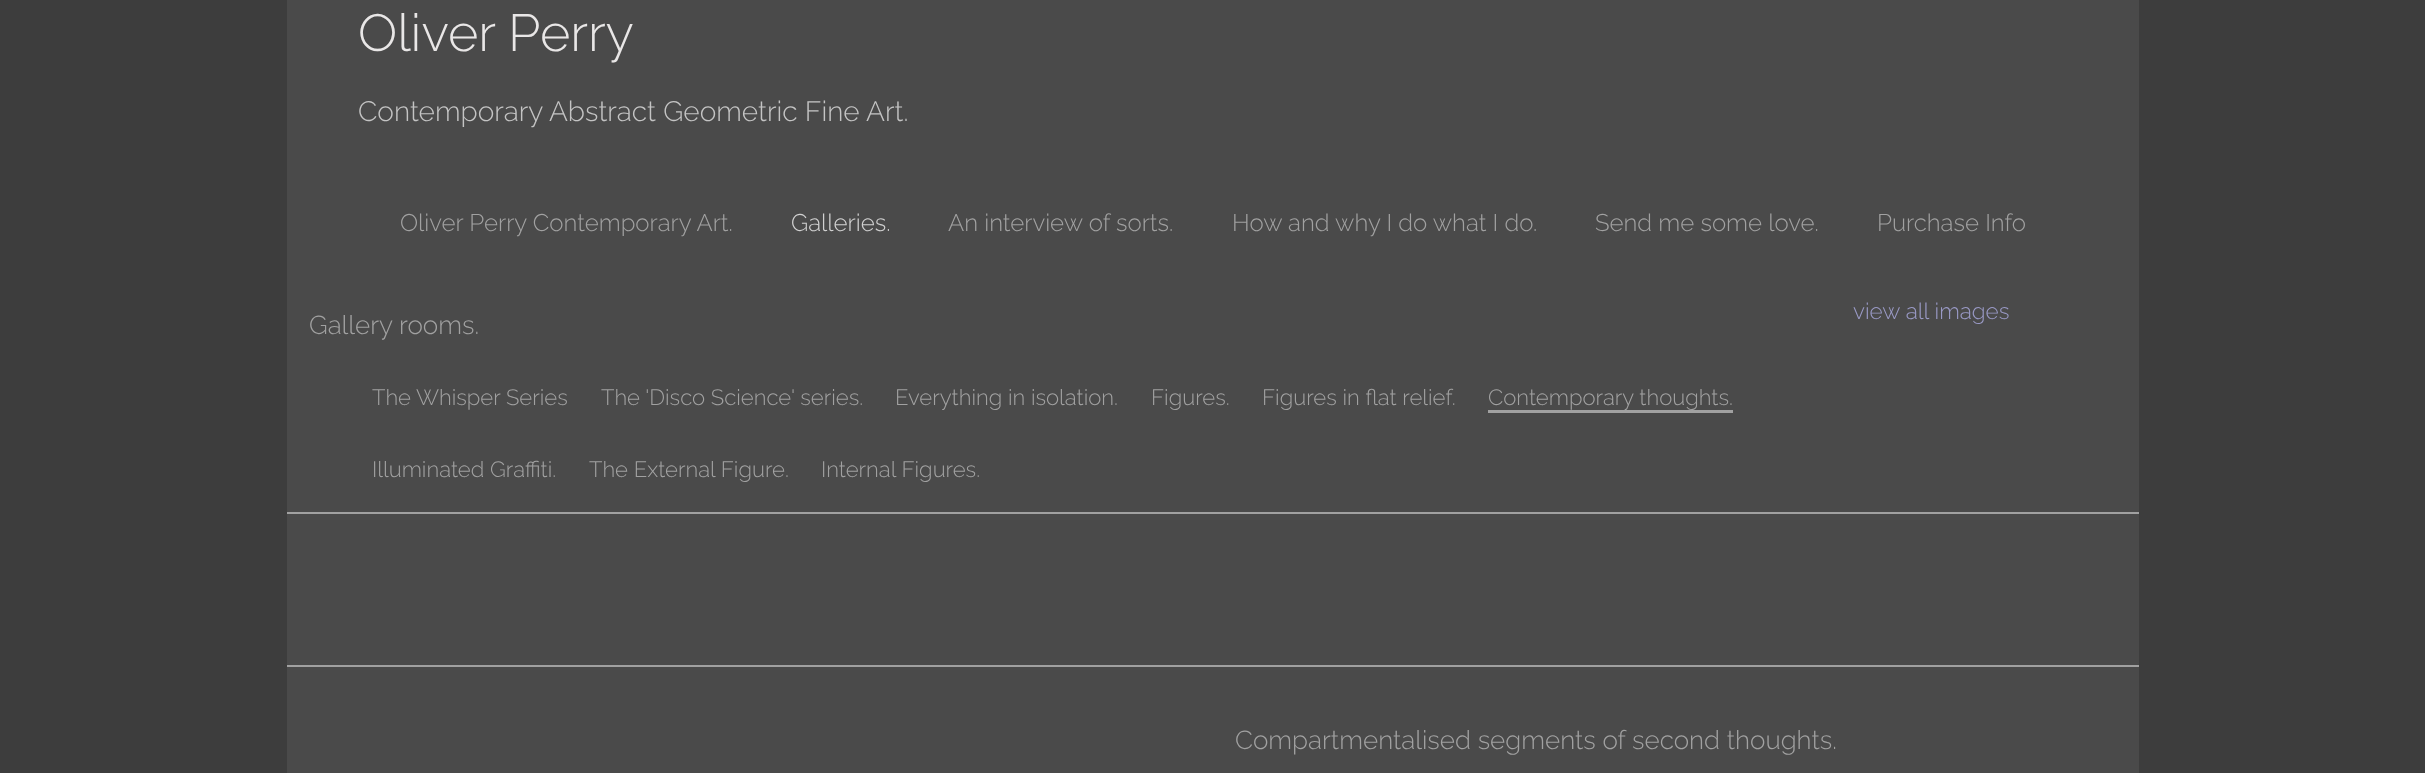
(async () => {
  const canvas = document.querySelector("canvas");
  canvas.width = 2425;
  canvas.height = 773;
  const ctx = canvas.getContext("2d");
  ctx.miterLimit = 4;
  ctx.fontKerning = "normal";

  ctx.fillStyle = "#3d3d3d";
  ctx.fillRect(0, 0, 2425, 773);
  for (const [x, y, w, h, color] of [
    [287, 0, 1852, 773, "#4a4a4a"],
    [1488, 410, 245, 3, "#a1a1a1"],
    [287, 512, 1852, 2, "#a1a1a1"],
    [287, 665, 1852, 2, "#a1a1a1"],
  ]) {
    ctx.fillStyle = color;
    ctx.fillRect(x, y, w, h);
  }
  ctx.font = "100 52px Raleway";
  ctx.fillStyle = "#e9e7e7";
  ctx.fillText("Oliver Perry", 358, 51);
  ctx.font = "100 28px Raleway";
  ctx.fillStyle = "#c4c4c4";
  ctx.fillText("Contemporary Abstract Geometric Fine Art.", 358, 121);
  ctx.font = "100 24px Raleway";
  ctx.fillStyle = "#a1a1a1";
  ctx.fillText("Oliver Perry Contemporary Art.", 400, 231);
  ctx.fillStyle = "#d1d1d1";
  ctx.fillText("Galleries.", 791, 231);
  ctx.fillStyle = "#a1a1a1";
  for (const [text, x, y] of [
    ["An interview of sorts.", 948, 231],
    ["How and why I do what I do.", 1232, 231],
    ["Send me some love.", 1595, 231],
    ["Purchase Info", 1877, 231],
  ]) {
    ctx.fillText(text, x, y);
  }
  ctx.font = "100 26px Raleway";
  ctx.fillText("Gallery rooms.", 309, 334);
  ctx.font = "100 22.1px Raleway";
  for (const [text, x, y] of [
    ["The Whisper Series", 372, 405],
    ["The 'Disco Science' series.", 601, 405],
    ["Everything in isolation.", 895, 405],
    ["Figures.", 1151, 405],
    ["Figures in flat relief.", 1262, 405],
    ["Contemporary thoughts.", 1488, 405],
    ["Illuminated Graffiti.", 372, 477],
    ["The External Figure.", 589, 477],
    ["Internal Figures.", 821, 477],
  ]) {
    ctx.fillText(text, x, y);
  }
  ctx.font = "100 22.5px Raleway";
  ctx.fillStyle = "#9a9ac6";
  ctx.fillText("view all images", 1853, 319);
  ctx.font = "100 26px Raleway";
  ctx.fillStyle = "#a1a1a1";
  ctx.fillText("Compartmentalised segments of second thoughts.", 1235, 749);
})();
